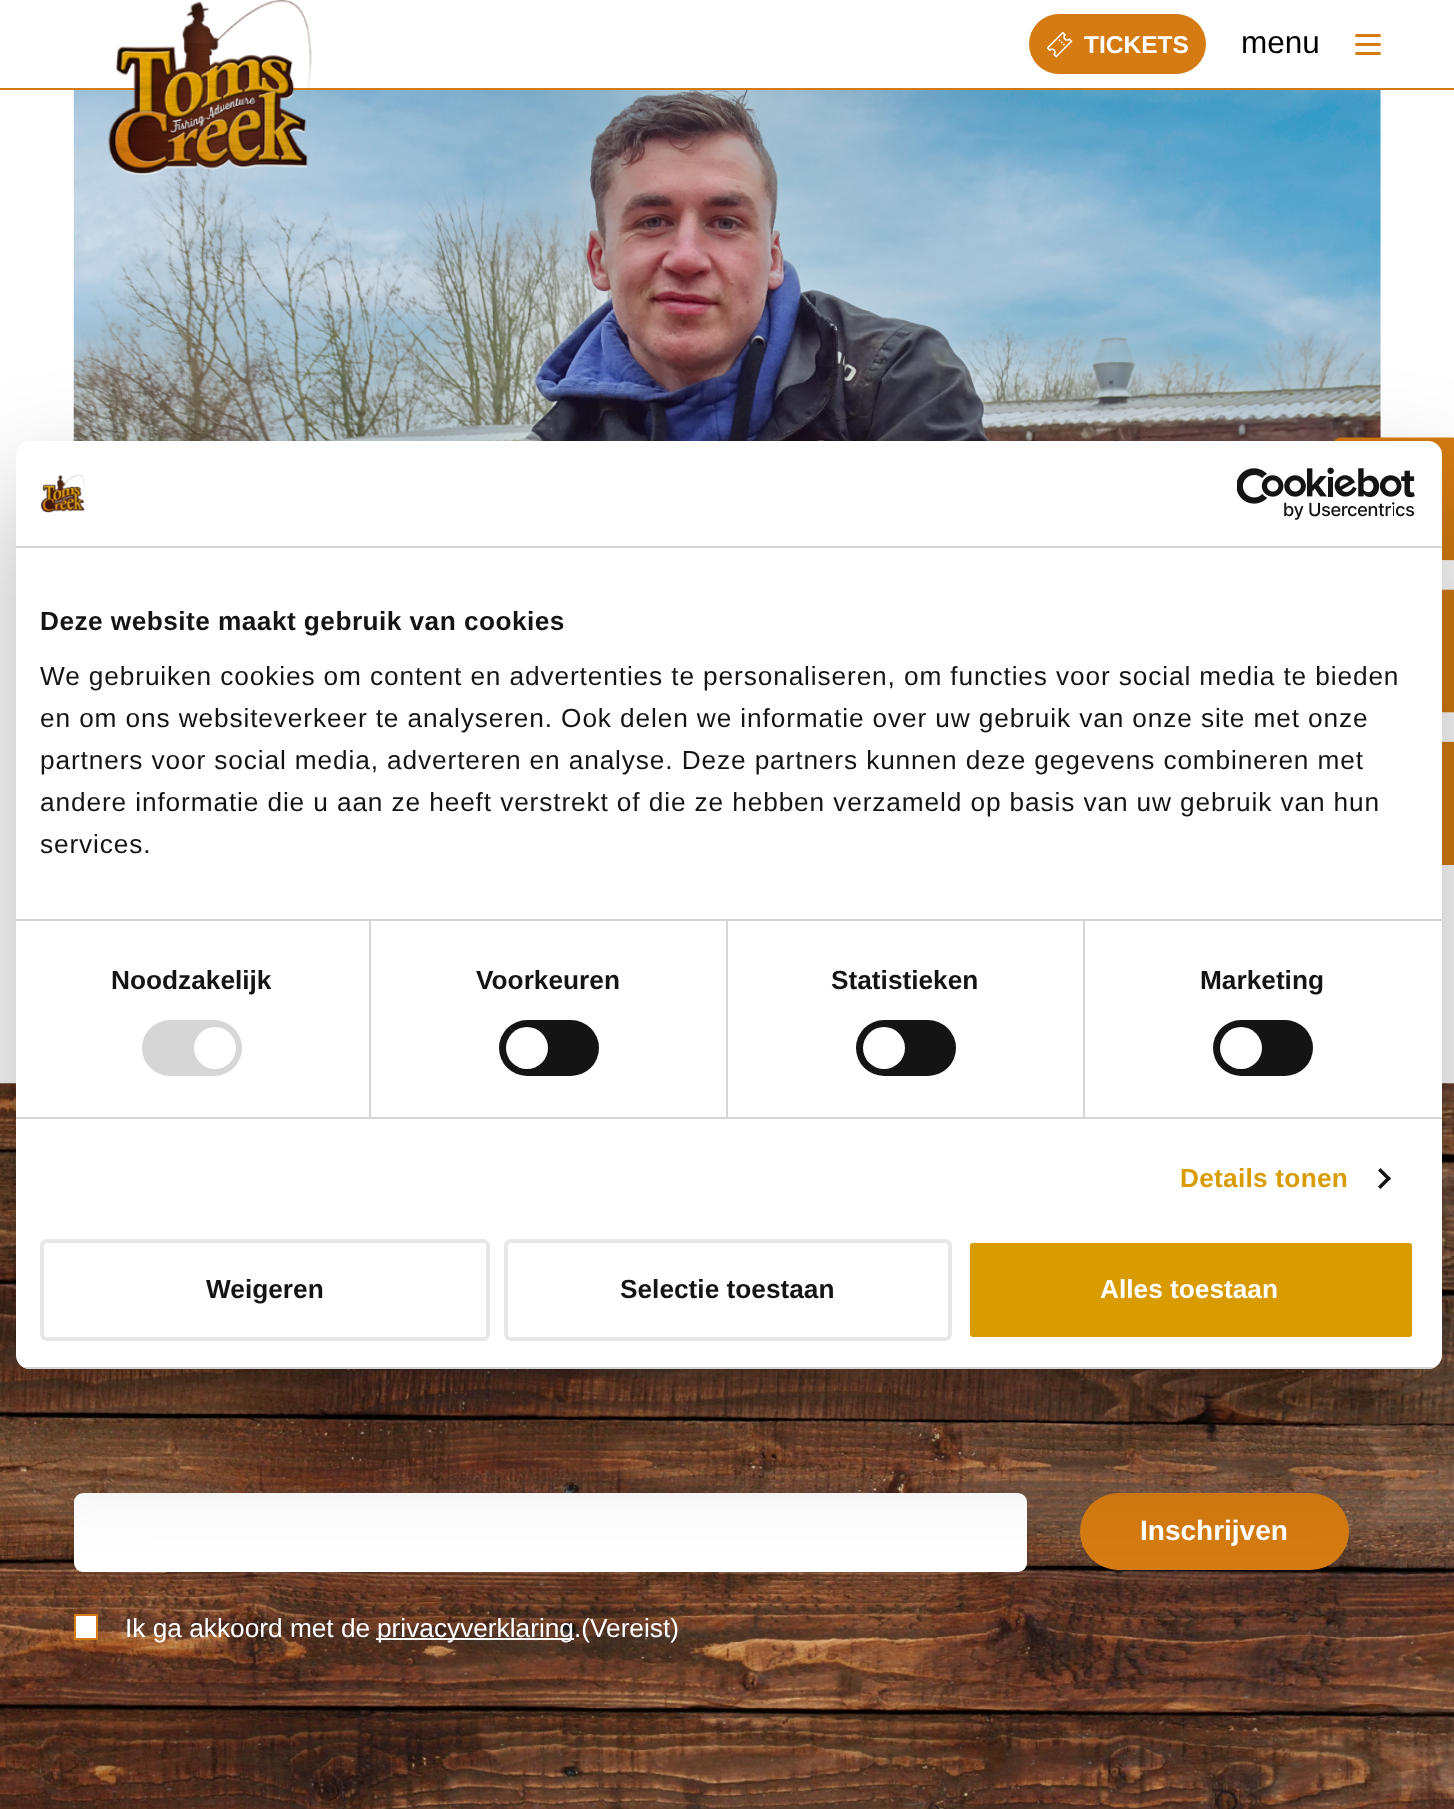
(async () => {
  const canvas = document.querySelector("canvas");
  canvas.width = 1454;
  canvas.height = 1809;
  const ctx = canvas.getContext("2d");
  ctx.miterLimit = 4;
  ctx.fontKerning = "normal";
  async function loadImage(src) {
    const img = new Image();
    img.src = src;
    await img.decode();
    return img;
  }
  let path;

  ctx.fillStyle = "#ffffff";
  ctx.fillRect(0, 0, 1454, 1809);
  ctx.fillStyle = "#d47b11";
  ctx.fillRect(0, 88, 1454, 2);
  ctx.drawImage(await loadImage("img/3.png"), 73, 90, 1308, 351);
  ctx.drawImage(await loadImage("img/1.png"), 108, 0, 204, 175);
  ctx.beginPath();
  ctx.roundRect(1029, 14, 177, 60, 30);
  ctx.fill();
  ctx.drawImage(await loadImage("img/2.png"), 1047, 32, 26, 26);
  ctx.beginPath();
  ctx.roundRect(1355, 34, 26, 3, 1.5);
  ctx.fill();
  ctx.beginPath();
  ctx.roundRect(1355, 43, 26, 3, 1.5);
  ctx.fill();
  ctx.beginPath();
  ctx.roundRect(1355, 52, 26, 3, 1.5);
  ctx.fill();
  path = new Path2D("M1341 438H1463V560H1341C1336 560 1332 556 1332 551V447C1332 442 1336 438 1341 438Z");
  ctx.fill(path);
  ctx.drawImage(await loadImage("img/4.png"), 1333, 437, 121, 124);
  ctx.fillRect(1442, 590, 12, 122);
  ctx.drawImage(await loadImage("img/5.png"), 1442, 589, 12, 124);
  ctx.fillRect(1442, 742, 12, 123);
  ctx.drawImage(await loadImage("img/6.png"), 1442, 741, 12, 124);
  ctx.drawImage(await loadImage("img/7.png"), 0, 1083, 1454, 726);
  ctx.beginPath();
  ctx.roundRect(1080, 1493, 269, 77, 38.5);
  ctx.fill();
  ctx.fillStyle = "#ffffff";
  ctx.beginPath();
  ctx.roundRect(75, 1494, 951, 77, 8);
  ctx.fill();
  ctx.strokeStyle = "#ffffff";
  ctx.lineWidth = 2;
  ctx.stroke();
  ctx.beginPath();
  ctx.rect(75, 1615, 22, 24);
  ctx.fill();
  ctx.strokeStyle = "#d47b11";
  ctx.stroke();
  ctx.fillRect(376, 1638, 198, 2);
  ctx.fillStyle = "rgba(0, 0, 0, 0.3)";
  ctx.filter = "blur(59.5px)";
  ctx.beginPath();
  ctx.roundRect(16, 497, 1426, 928, 14);
  ctx.fill();
  ctx.filter = "none";
  ctx.fillStyle = "#ffffff";
  ctx.beginPath();
  ctx.roundRect(16, 441, 1426, 928, 14);
  ctx.fill();
  ctx.fillStyle = "#d6d6d6";
  ctx.fillRect(16, 546, 1426, 2);
  ctx.drawImage(await loadImage("img/8.png"), 41, 474, 44, 39);
  ctx.drawImage(await loadImage("img/9.png"), 1237, 467, 178, 53);
  for (const [x, y, w, h, color] of [
    [16, 919, 1426, 2, "#d6d6d6"],
    [16, 1117, 1426, 2, "#d6d6d6"],
    [369, 921, 2, 196, "#d6d6d6"],
  ]) {
    ctx.fillStyle = color;
    ctx.fillRect(x, y, w, h);
  }
  ctx.beginPath();
  ctx.roundRect(142, 1020, 100, 56, 28);
  ctx.fill();
  ctx.fillStyle = "#ffffff";
  ctx.beginPath();
  ctx.arc(215, 1048, 21, 0, Math.PI * 2);
  ctx.fill();
  ctx.fillStyle = "#d6d6d6";
  ctx.fillRect(726, 921, 2, 196);
  ctx.fillStyle = "#141414";
  ctx.beginPath();
  ctx.roundRect(499, 1020, 100, 56, 28);
  ctx.fill();
  ctx.fillStyle = "#ffffff";
  ctx.beginPath();
  ctx.arc(527, 1048, 21, 0, Math.PI * 2);
  ctx.fill();
  ctx.fillStyle = "#d6d6d6";
  ctx.fillRect(1083, 921, 2, 196);
  ctx.fillStyle = "#141414";
  ctx.beginPath();
  ctx.roundRect(856, 1020, 100, 56, 28);
  ctx.fill();
  ctx.fillStyle = "#ffffff";
  ctx.beginPath();
  ctx.arc(884, 1048, 21, 0, Math.PI * 2);
  ctx.fill();
  ctx.fillStyle = "#141414";
  ctx.beginPath();
  ctx.roundRect(1213, 1020, 100, 56, 28);
  ctx.fill();
  ctx.fillStyle = "#ffffff";
  ctx.beginPath();
  ctx.arc(1241, 1048, 21, 0, Math.PI * 2);
  ctx.fill();
  ctx.fillStyle = "#141414";
  path = new Path2D("M1380.5 1168L1391 1178.5L1388.5 1181L1378 1170.5Z");
  ctx.fill(path);
  path = new Path2D("M1388.5 1176L1391 1178.5L1380.5 1189L1378 1186.5Z");
  ctx.fill(path);
  ctx.save();
  ctx.beginPath();
  ctx.roundRect(16, 441, 1426, 928, 14);
  ctx.clip();
  ctx.fillStyle = "#d6d6d6";
  ctx.fillRect(16, 1367, 1426, 2);
  ctx.restore();
  ctx.beginPath();
  ctx.roundRect(42, 1241, 446, 98, 5);
  ctx.strokeStyle = "#e7e7e7";
  ctx.lineWidth = 4;
  ctx.stroke();
  ctx.beginPath();
  ctx.roundRect(506, 1241, 444, 98, 5);
  ctx.stroke();
  ctx.fillStyle = "#d89c01";
  ctx.beginPath();
  ctx.roundRect(968, 1241, 446, 98, 5);
  ctx.fill();
  ctx.strokeStyle = "#ffffff";
  ctx.stroke();
  ctx.font = "bold 24.5px Liberation Sans";
  ctx.fillStyle = "#ffffff";
  ctx.fillText("TICKETS", 1084, 53);
  ctx.font = "31.5px Liberation Sans";
  ctx.fillStyle = "#000000";
  ctx.fillText("menu", 1241, 53);
  ctx.font = "bold 28px Liberation Sans";
  ctx.fillStyle = "#ffffff";
  ctx.fillText("Inschrijven", 1140, 1540);
  ctx.font = "26.25px Liberation Sans";
  ctx.fillText("Ik ga akkoord met de", 125, 1637);
  ctx.fillText("privacyverklaring.(Vereist)", 377, 1637);
  ctx.letterSpacing = "0.45px";
  ctx.font = "bold 26.25px Liberation Sans";
  ctx.fillStyle = "#141414";
  ctx.fillText("Deze website maakt gebruik van cookies", 40, 630);
  ctx.letterSpacing = "0.88px";
  ctx.font = "26.25px Liberation Sans";
  for (const [text, x, y] of [
    ["We gebruiken cookies om content en advertenties te personaliseren, om functies voor social media te bieden", 40, 685],
    ["en om ons websiteverkeer te analyseren. Ook delen we informatie over uw gebruik van onze site met onze", 40, 727],
    ["partners voor social media, adverteren en analyse. Deze partners kunnen deze gegevens combineren met", 40, 769],
    ["andere informatie die u aan ze heeft verstrekt of die ze hebben verzameld op basis van uw gebruik van hun", 40, 811],
    ["services.", 40, 853],
  ]) {
    ctx.fillText(text, x, y);
  }
  ctx.letterSpacing = "0px";
  ctx.font = "bold 26.25px Liberation Sans";
  for (const [text, x, y] of [
    ["Noodzakelijk", 111, 989],
    ["Voorkeuren", 476, 989],
    ["Statistieken", 831, 989],
    ["Marketing", 1200, 989],
  ]) {
    ctx.fillText(text, x, y);
  }
  ctx.letterSpacing = "0.25px";
  ctx.fillStyle = "#d89c01";
  ctx.fillText("Details tonen", 1180, 1187);
  ctx.letterSpacing = "0px";
  ctx.fillStyle = "#141414";
  ctx.fillText("Weigeren", 206, 1298);
  ctx.fillText("Selectie toestaan", 620, 1298);
  ctx.fillStyle = "#ffffff";
  ctx.fillText("Alles toestaan", 1100, 1298);
})();
